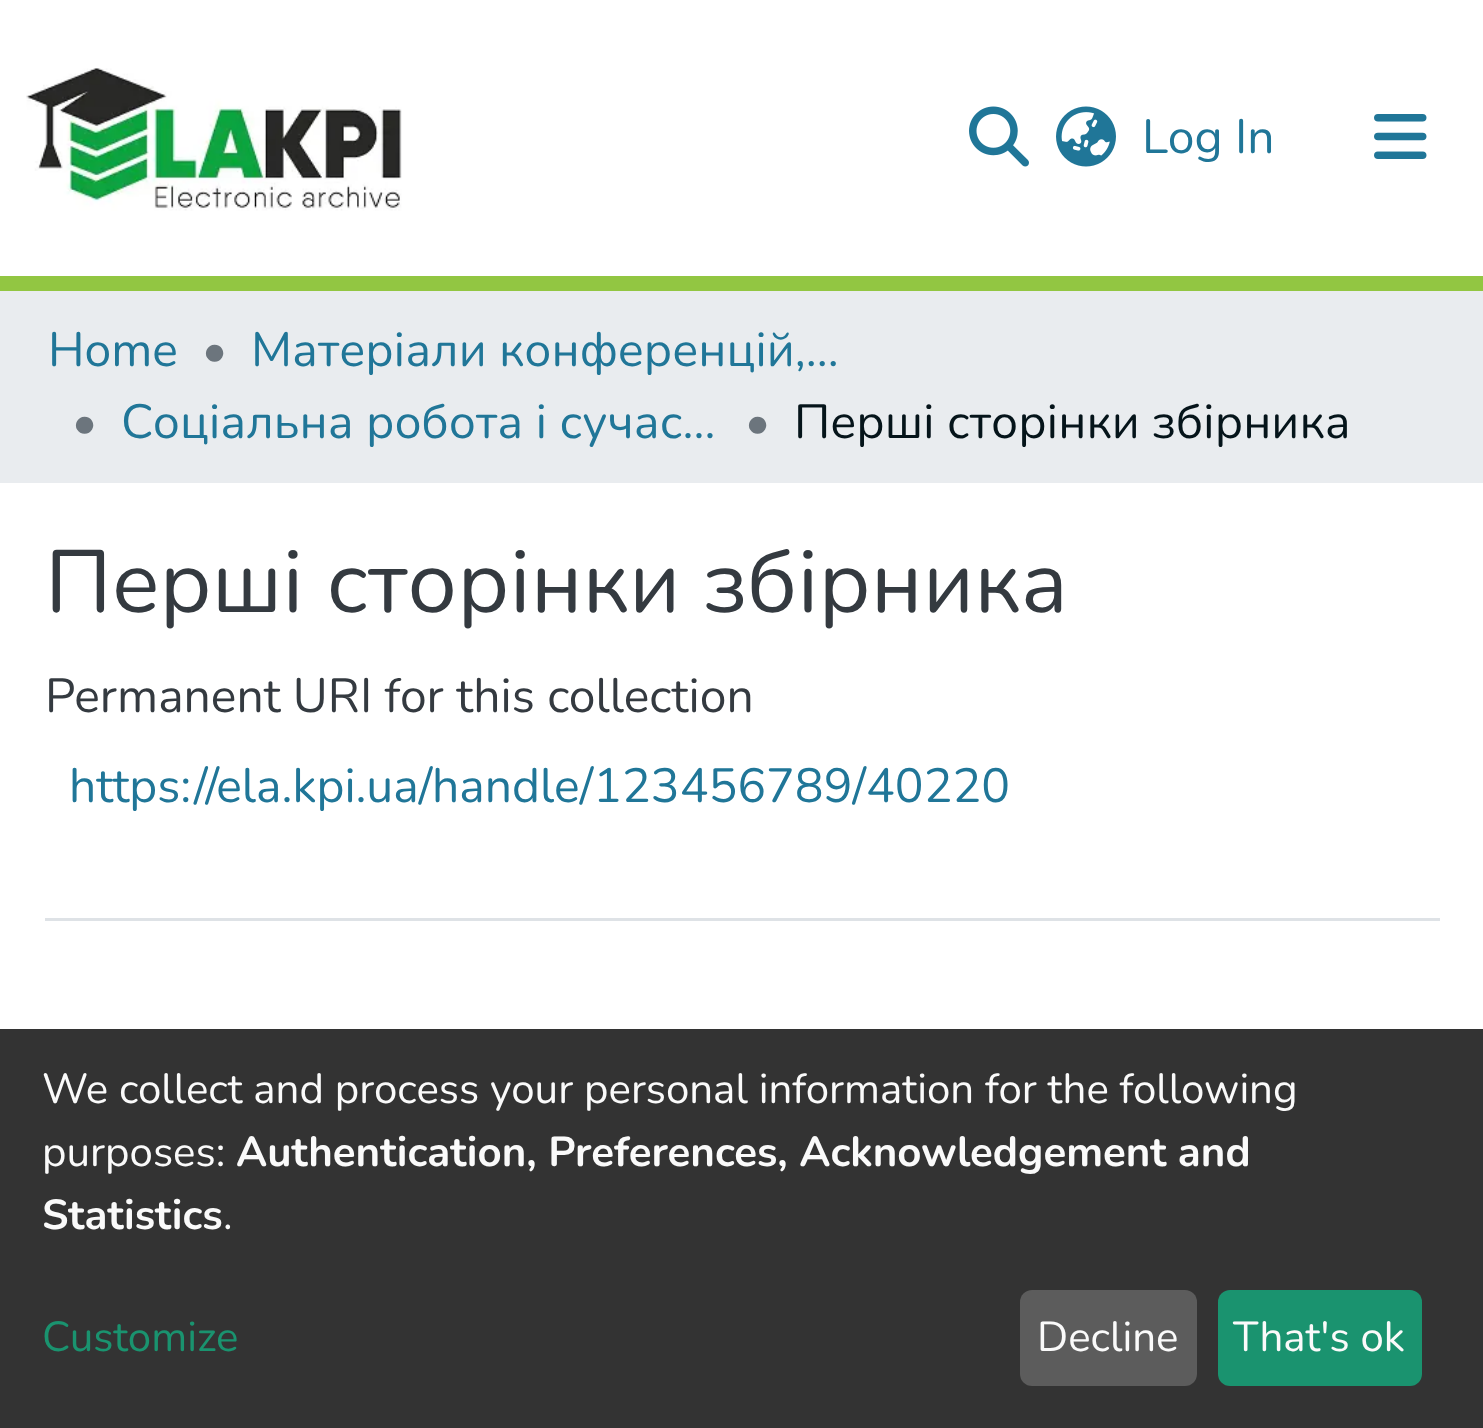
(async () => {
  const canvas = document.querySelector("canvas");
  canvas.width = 1483;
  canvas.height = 1428;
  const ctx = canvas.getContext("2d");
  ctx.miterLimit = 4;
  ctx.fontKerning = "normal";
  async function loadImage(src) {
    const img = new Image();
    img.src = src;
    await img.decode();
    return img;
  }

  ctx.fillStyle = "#ffffff";
  ctx.fillRect(0, 0, 1483, 1428);
  ctx.fillStyle = "#92c642";
  ctx.fillRect(0, 276, 1483, 15);
  ctx.drawImage(await loadImage("img/1.png"), 26, 68, 376, 143);
  ctx.drawImage(await loadImage("img/2.png"), 969, 106, 60, 61);
  ctx.drawImage(await loadImage("img/3.png"), 1056, 106, 60, 61);
  ctx.drawImage(await loadImage("img/4.png"), 1374, 114, 53, 45);
  for (const [x, y, w, h, color] of [
    [0, 291, 1483, 192, "#e9ecef"],
    [45, 918, 1395, 3, "#dee2e6"],
    [0, 1029, 1483, 399, "#333333"],
  ]) {
    ctx.fillStyle = color;
    ctx.fillRect(x, y, w, h);
  }
  ctx.fillStyle = "#5c5c5c";
  ctx.beginPath();
  ctx.roundRect(1020, 1290, 177, 96, 12);
  ctx.fill();
  ctx.fillStyle = "#1a936f";
  ctx.beginPath();
  ctx.roundRect(1218, 1290, 204, 96, 12);
  ctx.fill();
  ctx.font = "48px Nunito";
  ctx.fillStyle = "#207698";
  ctx.fillText("Log In", 1142, 153);
  ctx.fillText("Home", 48, 366);
  ctx.fillStyle = "#6c757d";
  ctx.fillText("•", 202, 366);
  ctx.fillStyle = "#207698";
  ctx.fillText("Матеріали конференцій,…", 251, 366);
  ctx.fillStyle = "#6c757d";
  ctx.fillText("•", 72, 438);
  ctx.fillStyle = "#207698";
  ctx.fillText("Соціальна робота і сучас…", 121, 438);
  ctx.fillStyle = "#6c757d";
  ctx.fillText("•", 745, 438);
  ctx.fillStyle = "#05141a";
  ctx.fillText("Перші сторінки збірника", 794, 438);
  ctx.font = "88.25px Nunito";
  ctx.fillStyle = "#343a40";
  ctx.fillText("Перші сторінки збірника", 45, 612);
  ctx.font = "48px Nunito";
  ctx.fillText("Permanent URI for this collection", 45, 712);
  ctx.fillStyle = "#207698";
  ctx.fillText("https://ela.kpi.ua/handle/123456789/40220", 69, 802);
  ctx.font = "42px Nunito";
  ctx.fillStyle = "#fafafa";
  ctx.fillText("We collect and process your personal information for the following", 42, 1103);
  ctx.fillText("purposes:", 42, 1166);
  ctx.font = "bold 42px Nunito";
  ctx.fillText("Authentication, Preferences, Acknowledgement and", 236, 1166);
  ctx.fillText("Statistics", 42, 1229);
  ctx.font = "42px Nunito";
  ctx.fillText(".", 223, 1229);
  ctx.fillStyle = "#1a936f";
  ctx.fillText("Customize", 42, 1351);
  ctx.fillStyle = "#fafafa";
  ctx.fillText("Decline", 1037, 1351);
  ctx.fillText("That's ok", 1233, 1351);
})();
